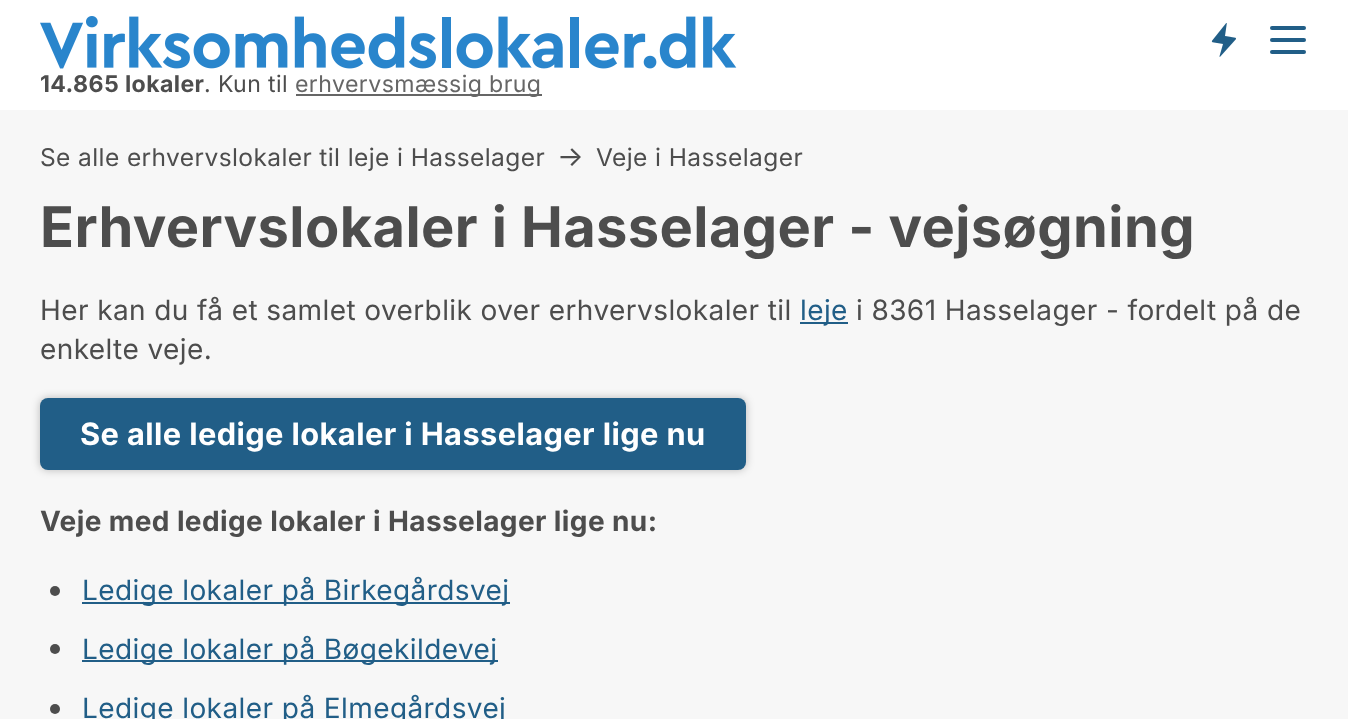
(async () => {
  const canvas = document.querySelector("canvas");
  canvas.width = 1348;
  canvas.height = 719;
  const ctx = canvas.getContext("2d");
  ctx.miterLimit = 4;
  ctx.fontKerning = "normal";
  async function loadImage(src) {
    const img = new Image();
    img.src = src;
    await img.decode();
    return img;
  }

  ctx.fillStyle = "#ffffff";
  ctx.fillRect(0, 0, 1348, 719);
  ctx.drawImage(await loadImage("img/1.png"), 40, 16, 697, 53);
  ctx.drawImage(await loadImage("img/2.png"), 1211, 23, 25, 34);
  ctx.fillStyle = "#215e87";
  ctx.beginPath();
  ctx.roundRect(1270, 26, 36, 4, 2);
  ctx.fill();
  ctx.beginPath();
  ctx.roundRect(1270, 38, 36, 4, 2);
  ctx.fill();
  ctx.beginPath();
  ctx.roundRect(1270, 50, 36, 4, 2);
  ctx.fill();
  for (const [x, y, w, h, color] of [
    [296, 94, 246, 2, "#666666"],
    [0, 110, 1348, 609, "#f7f7f7"],
    [800, 322, 48, 2, "#215e87"],
  ]) {
    ctx.fillStyle = color;
    ctx.fillRect(x, y, w, h);
  }
  ctx.fillStyle = "rgba(0, 0, 0, 0.25)";
  ctx.filter = "blur(4px)";
  ctx.beginPath();
  ctx.roundRect(40, 398, 706, 72, 8);
  ctx.fill();
  ctx.filter = "none";
  ctx.fillStyle = "#215e87";
  ctx.beginPath();
  ctx.roundRect(40, 398, 706, 72, 8);
  ctx.fill();
  ctx.fillStyle = "#4d4d4d";
  ctx.beginPath();
  ctx.arc(55, 591, 5, 0, Math.PI * 2);
  ctx.fill();
  ctx.fillStyle = "#215e87";
  ctx.fillRect(82, 602, 428, 2);
  ctx.fillStyle = "#4d4d4d";
  ctx.beginPath();
  ctx.arc(55, 649, 5, 0, Math.PI * 2);
  ctx.fill();
  ctx.fillStyle = "#215e87";
  ctx.fillRect(82, 660, 416, 2);
  ctx.fillStyle = "#4d4d4d";
  ctx.beginPath();
  ctx.arc(55, 709, 5, 0, Math.PI * 2);
  ctx.fill();
  ctx.letterSpacing = "0.4px";
  ctx.font = "bold 23.1px Inter";
  ctx.fillText("14.865 lokaler", 40, 92);
  ctx.font = "23.1px Inter";
  ctx.fillText(". Kun til", 204, 92);
  ctx.fillStyle = "#666666";
  ctx.fillText("erhvervsmæssig brug", 295, 92);
  ctx.font = "24.5px Inter";
  ctx.fillStyle = "#4d4d4d";
  ctx.fillText("Se alle erhvervslokaler til leje i Hasselager", 40, 166);
  ctx.font = "28px Inter";
  ctx.fillText("→", 557, 166);
  ctx.font = "24.5px Inter";
  ctx.fillText("Veje i Hasselager", 596, 166);
  ctx.font = "bold 56px Inter";
  ctx.fillText("Erhvervslokaler i Hasselager - vejsøgning", 40, 247);
  ctx.font = "28px Inter";
  ctx.fillText("Her kan du få et samlet overblik over erhvervslokaler til", 40, 320);
  ctx.fillStyle = "#215e87";
  ctx.fillText("leje", 800, 320);
  ctx.fillStyle = "#4d4d4d";
  ctx.fillText("i 8361 Hasselager - fordelt på de", 856, 320);
  ctx.fillText("enkelte veje.", 40, 359);
  ctx.font = "bold 30.8px Inter";
  ctx.fillStyle = "#ffffff";
  ctx.fillText("Se alle ledige lokaler i Hasselager lige nu", 80, 445);
  ctx.font = "bold 28px Inter";
  ctx.fillStyle = "#4d4d4d";
  ctx.fillText("Veje med ledige lokaler i Hasselager lige nu:", 40, 531);
  ctx.font = "28px Inter";
  ctx.fillStyle = "#215e87";
  for (const [text, x, y] of [
    ["Ledige lokaler på Birkegårdsvej", 82, 600],
    ["Ledige lokaler på Bøgekildevej", 82, 659],
    ["Ledige lokaler på Elmegårdsvej", 82, 718],
  ]) {
    ctx.fillText(text, x, y);
  }
})();
